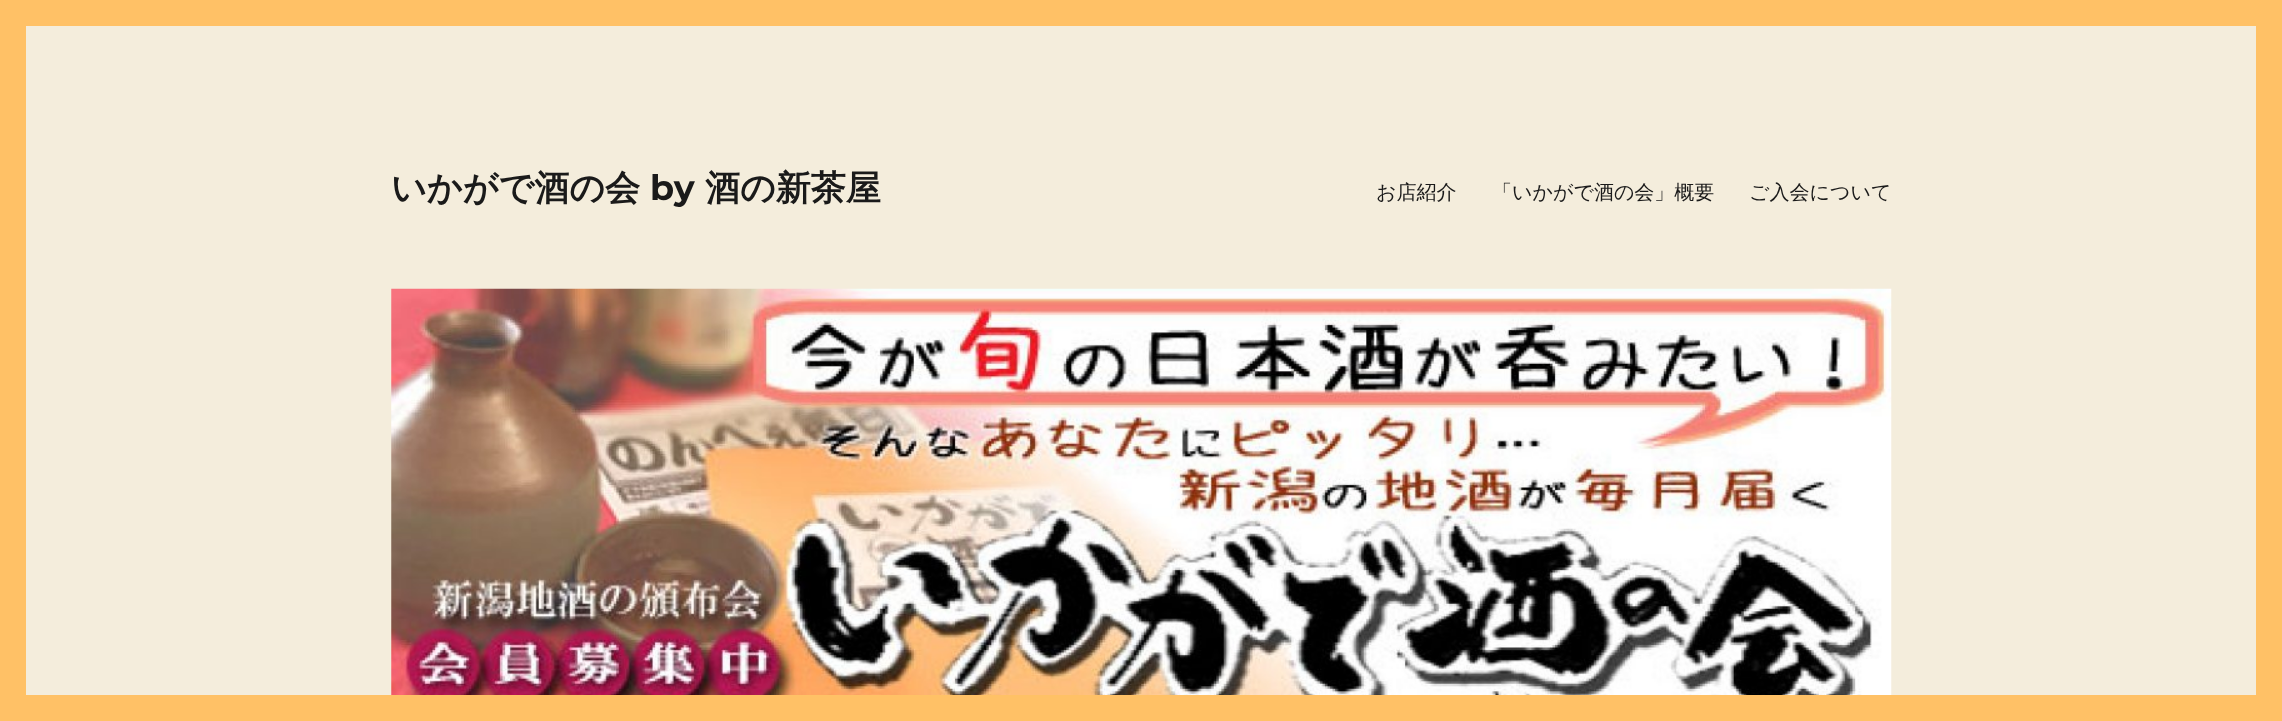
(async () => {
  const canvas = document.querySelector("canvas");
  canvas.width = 2282;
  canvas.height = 721;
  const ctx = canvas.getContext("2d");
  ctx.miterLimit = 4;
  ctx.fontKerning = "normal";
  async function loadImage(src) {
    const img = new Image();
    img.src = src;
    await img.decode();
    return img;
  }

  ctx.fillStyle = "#ffc166";
  ctx.fillRect(0, 0, 2282, 721);
  ctx.fillStyle = "#f4eddc";
  ctx.fillRect(26, 26, 2230, 669);
  ctx.drawImage(await loadImage("img/1.png"), 391, 288, 1501, 407);
  ctx.font = "bold 35px WenQuanYi Zen Hei";
  ctx.fillStyle = "#1a1a1a";
  ctx.fillText("いかがで酒の会", 391, 200);
  ctx.font = "bold 35px Montserrat";
  ctx.fillText("by", 650, 200);
  ctx.font = "bold 35px WenQuanYi Zen Hei";
  ctx.fillText("酒の新茶屋", 705, 200);
  ctx.font = "500 20px WenQuanYi Zen Hei";
  for (const [text, x, y] of [
    ["お店紹介", 1376, 199],
    ["「いかがで酒の会」概要", 1492, 199],
    ["ご入会について", 1749, 199],
  ]) {
    ctx.fillText(text, x, y);
  }
})();
